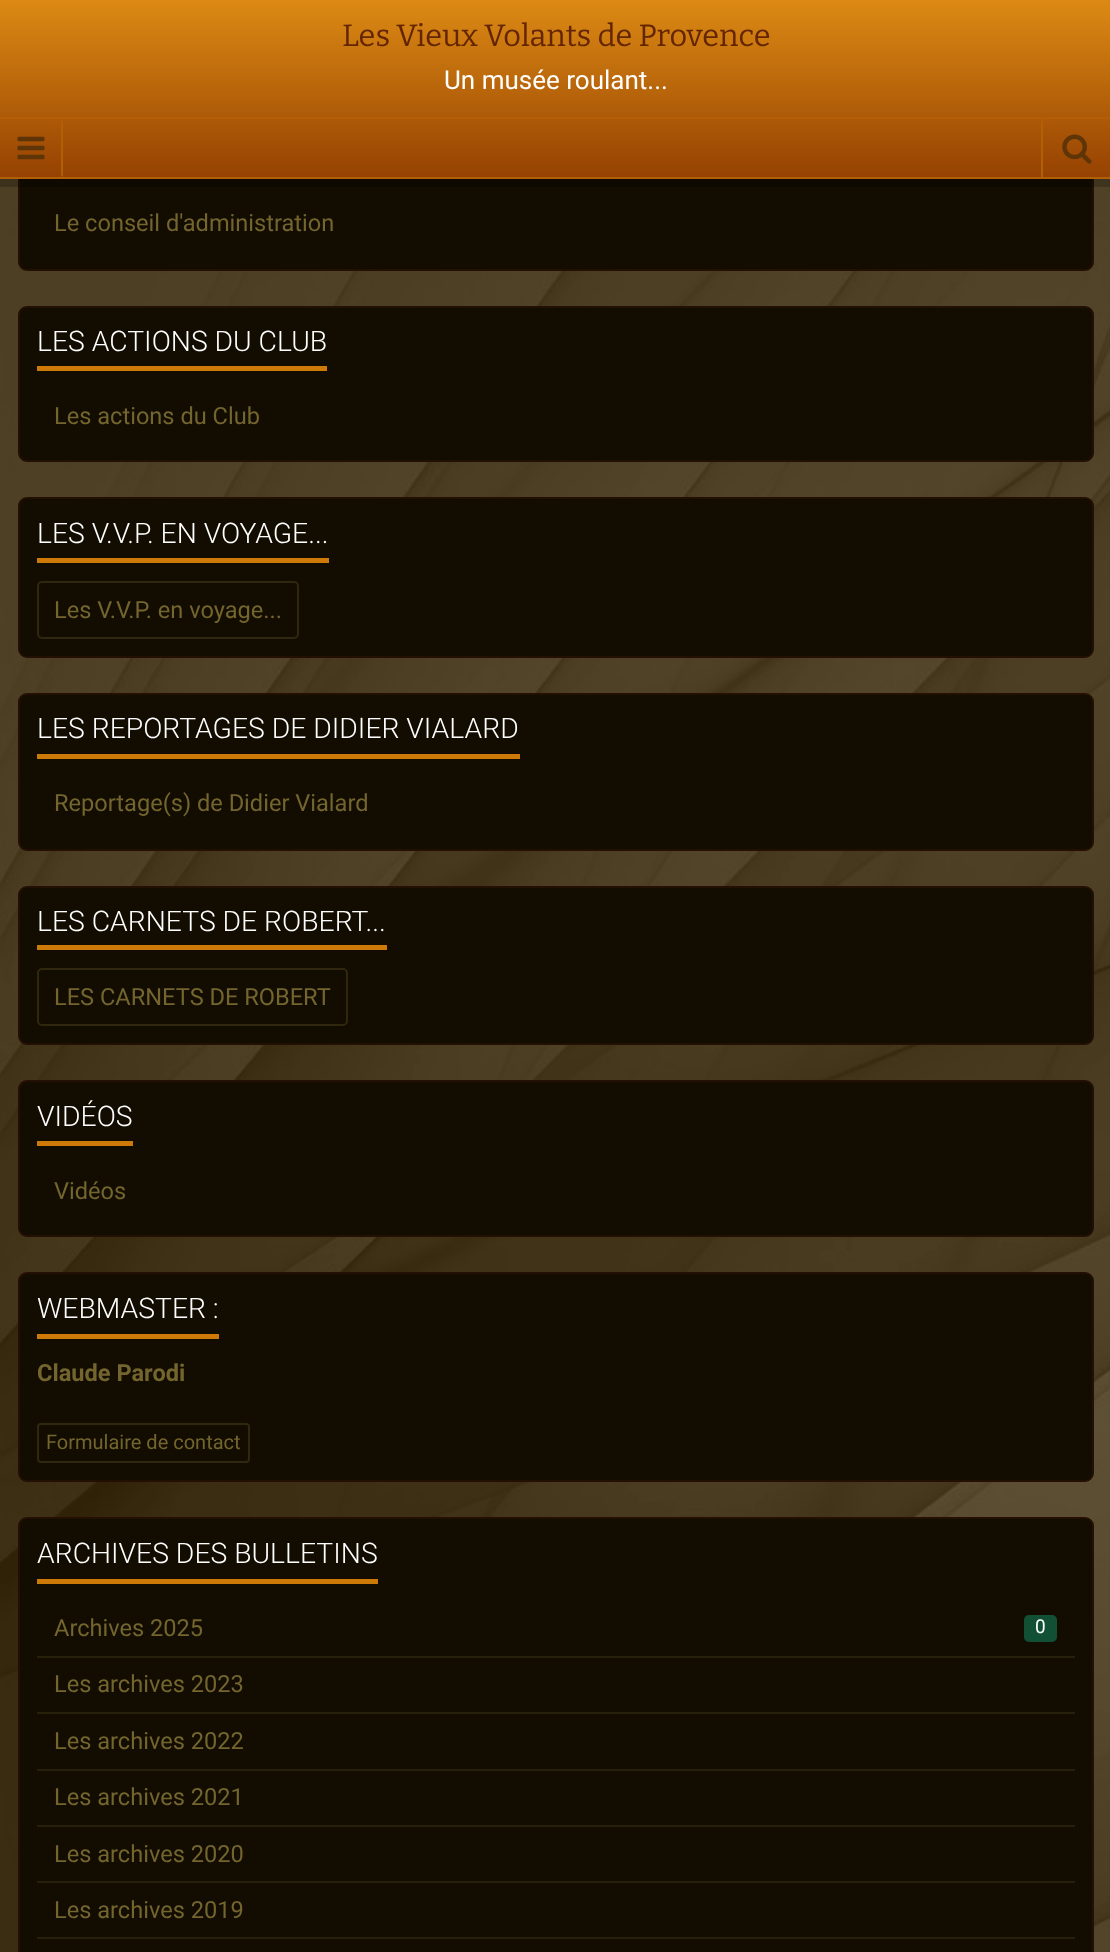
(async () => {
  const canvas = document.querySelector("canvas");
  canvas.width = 1110;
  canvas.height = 1952;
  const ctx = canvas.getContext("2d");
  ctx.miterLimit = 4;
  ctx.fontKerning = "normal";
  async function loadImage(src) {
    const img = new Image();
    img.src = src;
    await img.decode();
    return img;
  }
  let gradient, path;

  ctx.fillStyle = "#382806";
  ctx.fillRect(0, 0, 1110, 1952);
  ctx.drawImage(await loadImage("img/1.png"), 0, 179, 1110, 1773);
  ctx.fillStyle = "#130d01";
  ctx.beginPath();
  ctx.roundRect(19, 115, 1074, 155, 8);
  ctx.fill();
  ctx.strokeStyle = "#230f03";
  ctx.lineWidth = 2;
  ctx.stroke();
  ctx.fillStyle = "rgba(0, 0, 0, 0.2)";
  ctx.fillRect(0, 179, 1110, 8);
  gradient = ctx.createLinearGradient(556, 0, 556, 179);
  gradient.addColorStop(0, "#dc8a14");
  gradient.addColorStop(1, "#954102");
  ctx.fillStyle = gradient;
  ctx.fillRect(0, 0, 1110, 177);
  ctx.fillStyle = "#b35f05";
  ctx.fillRect(0, 117, 1110, 2);
  ctx.fillRect(0, 177, 1110, 2);
  path = new Path2D("M63 119V177L61 175V121Z");
  ctx.fill(path);
  ctx.drawImage(await loadImage("img/2.png"), 17, 136, 28, 24);
  ctx.fillRect(1041, 119, 2, 58);
  ctx.drawImage(await loadImage("img/3.png"), 1062, 134, 30, 30);
  ctx.fillStyle = "#130d01";
  ctx.beginPath();
  ctx.roundRect(19, 307, 1074, 154, 8);
  ctx.fill();
  ctx.stroke();
  ctx.fillStyle = "#ce7a09";
  ctx.fillRect(37, 366, 290, 5);
  ctx.fillStyle = "#130d01";
  ctx.beginPath();
  ctx.roundRect(19, 498, 1074, 159, 8);
  ctx.fill();
  ctx.stroke();
  ctx.fillStyle = "#ce7a09";
  ctx.fillRect(37, 558, 292, 5);
  ctx.beginPath();
  ctx.roundRect(38, 582, 260, 56, 4);
  ctx.strokeStyle = "#30270e";
  ctx.stroke();
  ctx.fillStyle = "#130d01";
  ctx.beginPath();
  ctx.roundRect(19, 694, 1074, 156, 8);
  ctx.fill();
  ctx.strokeStyle = "#230f03";
  ctx.stroke();
  ctx.fillStyle = "#ce7a09";
  ctx.fillRect(37, 754, 483, 5);
  ctx.fillStyle = "#130d01";
  ctx.beginPath();
  ctx.roundRect(19, 887, 1074, 157, 8);
  ctx.fill();
  ctx.stroke();
  ctx.fillStyle = "#ce7a09";
  ctx.fillRect(37, 945, 350, 5);
  ctx.beginPath();
  ctx.roundRect(38, 969, 309, 56, 4);
  ctx.strokeStyle = "#30270e";
  ctx.stroke();
  ctx.fillStyle = "#130d01";
  ctx.beginPath();
  ctx.roundRect(19, 1081, 1074, 155, 8);
  ctx.fill();
  ctx.strokeStyle = "#230f03";
  ctx.stroke();
  ctx.fillStyle = "#ce7a09";
  ctx.fillRect(37, 1141, 96, 5);
  ctx.fillStyle = "#130d01";
  ctx.beginPath();
  ctx.roundRect(19, 1273, 1074, 208, 8);
  ctx.fill();
  ctx.stroke();
  ctx.fillStyle = "#ce7a09";
  ctx.fillRect(37, 1334, 182, 5);
  ctx.beginPath();
  ctx.roundRect(38, 1424, 211, 38, 3);
  ctx.strokeStyle = "#30270e";
  ctx.stroke();
  ctx.fillStyle = "#130d01";
  ctx.beginPath();
  ctx.roundRect(19, 1518, 1074, 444, 8);
  ctx.fill();
  ctx.strokeStyle = "#230f03";
  ctx.stroke();
  ctx.fillStyle = "#ce7a09";
  ctx.fillRect(37, 1579, 341, 5);
  ctx.fillStyle = "#261f0a";
  ctx.fillRect(37, 1656, 1038, 2);
  ctx.fillStyle = "#125036";
  ctx.beginPath();
  ctx.roundRect(1024, 1615, 33, 27, 5);
  ctx.fill();
  for (const [x, y, w, h, color] of [
    [37, 1712, 1038, 2, "#261f0a"],
    [37, 1769, 1038, 2, "#261f0a"],
    [37, 1825, 1038, 2, "#261f0a"],
    [37, 1881, 1038, 2, "#261f0a"],
    [37, 1937, 1038, 2, "#261f0a"],
  ]) {
    ctx.fillStyle = color;
    ctx.fillRect(x, y, w, h);
  }
  ctx.font = "100 30.75px Bitter";
  ctx.fillStyle = "#642502";
  ctx.fillText("Les Vieux Volants de Provence", 342, 46);
  ctx.font = "26px Roboto";
  ctx.fillStyle = "#ffffff";
  ctx.fillText("Un musée roulant...", 444, 89);
  ctx.font = "23.6px Roboto";
  ctx.fillStyle = "#73652d";
  ctx.fillText("Le conseil d'administration", 54, 231);
  ctx.font = "300 28.3px Roboto";
  ctx.fillStyle = "#ffffff";
  ctx.fillText("LES ACTIONS DU CLUB", 37, 351);
  ctx.font = "23.6px Roboto";
  ctx.fillStyle = "#73652d";
  ctx.fillText("Les actions du Club", 54, 424);
  ctx.font = "300 28.3px Roboto";
  ctx.fillStyle = "#ffffff";
  ctx.fillText("LES V.V.P. EN VOYAGE...", 37, 543);
  ctx.font = "23.6px Roboto";
  ctx.fillStyle = "#73652d";
  ctx.fillText("Les V.V.P. en voyage...", 54, 618);
  ctx.font = "300 28.3px Roboto";
  ctx.fillStyle = "#ffffff";
  ctx.fillText("LES REPORTAGES DE DIDIER VIALARD", 37, 738);
  ctx.font = "23.6px Roboto";
  ctx.fillStyle = "#73652d";
  ctx.fillText("Reportage(s) de Didier Vialard", 54, 811);
  ctx.font = "300 28.3px Roboto";
  ctx.fillStyle = "#ffffff";
  ctx.fillText("LES CARNETS DE ROBERT...", 37, 931);
  ctx.font = "23.6px Roboto";
  ctx.fillStyle = "#73652d";
  ctx.fillText("LES CARNETS DE ROBERT", 54, 1005);
  ctx.font = "300 28.3px Roboto";
  ctx.fillStyle = "#ffffff";
  ctx.fillText("VIDÉOS", 37, 1126);
  ctx.font = "23.6px Roboto";
  ctx.fillStyle = "#73652d";
  ctx.fillText("Vidéos", 54, 1199);
  ctx.font = "300 28.3px Roboto";
  ctx.fillStyle = "#ffffff";
  ctx.fillText("WEBMASTER :", 37, 1318);
  ctx.font = "bold 23.6px Roboto";
  ctx.fillStyle = "#73652d";
  ctx.fillText("Claude Parodi", 37, 1381);
  ctx.font = "20px Roboto";
  ctx.fillText("Formulaire de contact", 46, 1449);
  ctx.font = "300 28.3px Roboto";
  ctx.fillStyle = "#ffffff";
  ctx.fillText("ARCHIVES DES BULLETINS", 37, 1563);
  ctx.font = "23.6px Roboto";
  ctx.fillStyle = "#73652d";
  ctx.fillText("Archives 2025", 54, 1636);
  ctx.font = "19px Roboto";
  ctx.fillStyle = "#ffffff";
  ctx.fillText("0", 1035, 1633);
  ctx.font = "23.6px Roboto";
  ctx.fillStyle = "#73652d";
  for (const [text, x, y] of [
    ["Les archives 2023", 54, 1692],
    ["Les archives 2022", 54, 1749],
    ["Les archives 2021", 54, 1805],
    ["Les archives 2020", 54, 1862],
    ["Les archives 2019", 54, 1918],
  ]) {
    ctx.fillText(text, x, y);
  }
})();
